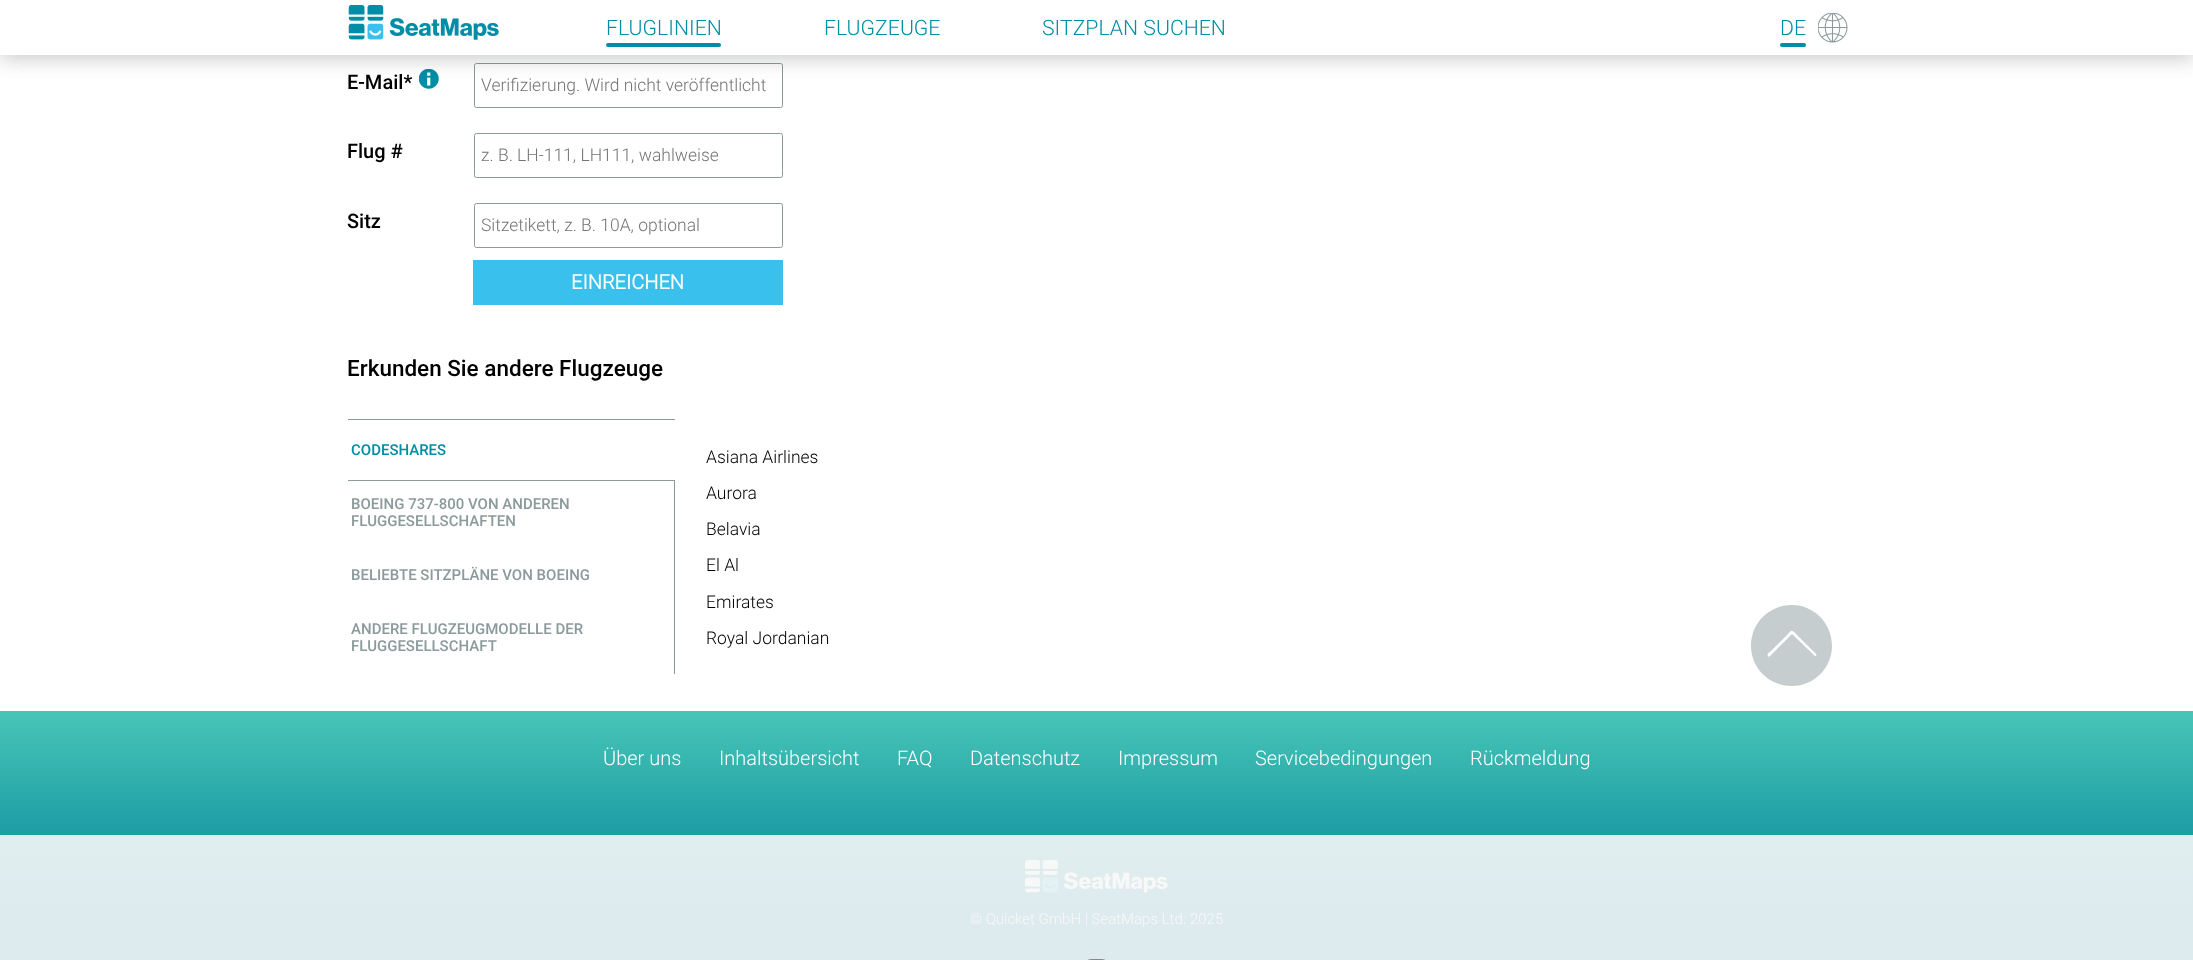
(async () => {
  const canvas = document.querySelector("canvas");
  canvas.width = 2193;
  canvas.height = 960;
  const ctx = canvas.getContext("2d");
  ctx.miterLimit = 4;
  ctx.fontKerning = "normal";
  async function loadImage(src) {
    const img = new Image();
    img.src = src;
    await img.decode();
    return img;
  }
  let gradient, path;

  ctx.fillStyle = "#ffffff";
  ctx.fillRect(0, 0, 2193, 960);
  ctx.drawImage(await loadImage("img/3.png"), 419, 69, 20, 20);
  ctx.beginPath();
  ctx.roundRect(474.5, 63.5, 308, 44, 2);
  ctx.strokeStyle = "#8c9a9c";
  ctx.stroke();
  ctx.fillStyle = "rgba(0, 0, 0, 0.1)";
  ctx.filter = "blur(10px)";
  ctx.beginPath();
  ctx.rect(0, 4, 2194, 55);
  ctx.fill();
  ctx.filter = "none";
  ctx.filter = "blur(10px)";
  ctx.beginPath();
  ctx.rect(0, 4, 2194, 55);
  ctx.fill();
  ctx.filter = "none";
  ctx.fillStyle = "#ffffff";
  ctx.fillRect(0, 0, 2193, 55);
  ctx.drawImage(await loadImage("img/1.png"), 348, 5, 151, 35);
  ctx.fillStyle = "#008da6";
  ctx.beginPath();
  ctx.roundRect(606, 43, 115, 4, 2);
  ctx.fill();
  ctx.beginPath();
  ctx.roundRect(1780, 43, 26, 4, 2);
  ctx.fill();
  ctx.drawImage(await loadImage("img/2.png"), 1818, 13, 30, 30);
  ctx.beginPath();
  ctx.roundRect(474.5, 133.5, 308, 44, 2);
  ctx.stroke();
  ctx.beginPath();
  ctx.roundRect(474.5, 203.5, 308, 44, 2);
  ctx.stroke();
  for (const [x, y, w, h, color] of [
    [473, 260, 310, 45, "#39c0ec"],
    [348, 419, 326, 1, "#8c9a9c"],
    [348, 480, 326, 1, "#8c9a9c"],
    [674, 419, 1, 255, "#8c9a9c"],
    [674, 420, 1, 60, "#ffffff"],
  ]) {
    ctx.fillStyle = color;
    ctx.fillRect(x, y, w, h);
  }
  ctx.fillStyle = "#c6cdce";
  path = new Path2D("M1751 646C1751 623 1769 605 1792 605C1814 605 1832 623 1832 646C1832 668 1814 686 1792 686C1769 686 1751 668 1751 646ZM1768 656C1766 654 1770 652 1772 650L1787 635C1792 630 1791 629 1797 635L1816 654C1817 655 1816 657 1815 656L1792 634L1770 656C1769 657 1768 657 1768 656Z");
  ctx.fill(path, "evenodd");
  gradient = ctx.createLinearGradient(1097, 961, 1097, 560);
  gradient.addColorStop(0.1, "#008198");
  gradient.addColorStop(1, "#7bf7ce");
  ctx.fillStyle = gradient;
  ctx.fillRect(0, 711, 2193, 124);
  gradient = ctx.createLinearGradient(1097, 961, 1097, 560);
  gradient.addColorStop(0.1, "#deebee");
  gradient.addColorStop(1, "#ebf7f3");
  ctx.fillStyle = gradient;
  ctx.fillRect(0, 835, 2193, 125);
  ctx.drawImage(await loadImage("img/4.png"), 1025, 860, 143, 33);
  ctx.beginPath();
  ctx.roundRect(1083.5, 959.5, 26, 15, 13);
  ctx.strokeStyle = "#f1f4f5";
  ctx.stroke();
  ctx.beginPath();
  ctx.roundRect(1083.5, 959.5, 26, 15, 13);
  ctx.strokeStyle = "#888888";
  ctx.stroke();
  ctx.font = "300 21.25px Roboto";
  ctx.fillStyle = "#008da6";
  for (const [text, x, y] of [
    ["FLUGLINIEN", 606, 35],
    ["FLUGZEUGE", 824, 35],
    ["SITZPLAN SUCHEN", 1042, 35],
    ["DE", 1780, 35],
  ]) {
    ctx.fillText(text, x, y);
  }
  ctx.font = "500 20px Roboto";
  ctx.fillStyle = "#000000";
  ctx.fillText("E-Mail*", 347, 89);
  ctx.font = "300 17.5px Roboto";
  ctx.fillStyle = "#757575";
  ctx.fillText("Verifizierung. Wird nicht veröffentlicht", 481, 91);
  ctx.font = "500 20px Roboto";
  ctx.fillStyle = "#000000";
  ctx.fillText("Flug #", 347, 158);
  ctx.font = "300 17.5px Roboto";
  ctx.fillStyle = "#757575";
  ctx.fillText("z. B. LH-111, LH111, wahlweise", 481, 161);
  ctx.font = "500 20px Roboto";
  ctx.fillStyle = "#000000";
  ctx.fillText("Sitz", 347, 228);
  ctx.font = "300 17.5px Roboto";
  ctx.fillStyle = "#757575";
  ctx.fillText("Sitzetikett, z. B. 10A, optional", 481, 231);
  ctx.font = "bold 20px Roboto";
  ctx.fillStyle = "#ffffff";
  ctx.fillText("EINREICHEN", 571, 289);
  ctx.font = "500 22.5px Roboto";
  ctx.fillStyle = "#000000";
  ctx.fillText("Erkunden Sie andere Flugzeuge", 347, 376);
  ctx.font = "500 15px Roboto";
  ctx.fillStyle = "#008da6";
  ctx.fillText("CODESHARES", 351, 455);
  ctx.font = "300 17.5px Roboto";
  ctx.fillStyle = "#000000";
  for (const [text, x, y] of [
    ["Asiana Airlines", 706, 463],
    ["Aurora", 706, 499],
    ["Belavia", 706, 535],
    ["El Al", 706, 571],
    ["Emirates", 706, 608],
    ["Royal Jordanian", 706, 644],
  ]) {
    ctx.fillText(text, x, y);
  }
  ctx.font = "500 15px Roboto";
  ctx.fillStyle = "#8c9a9c";
  for (const [text, x, y] of [
    ["BOEING 737-800 VON ANDEREN", 351, 509],
    ["FLUGGESELLSCHAFTEN", 351, 526],
    ["BELIEBTE SITZPLÄNE VON BOEING", 351, 580],
    ["ANDERE FLUGZEUGMODELLE DER", 351, 634],
    ["FLUGGESELLSCHAFT", 351, 651],
  ]) {
    ctx.fillText(text, x, y);
  }
  ctx.font = "300 20px Roboto";
  ctx.fillStyle = "#ffffff";
  for (const [text, x, y] of [
    ["Über uns", 603, 765],
    ["Inhaltsübersicht", 719, 765],
    ["FAQ", 897, 765],
    ["Datenschutz", 970, 765],
    ["Impressum", 1118, 765],
    ["Servicebedingungen", 1255, 765],
    ["Rückmeldung", 1470, 765],
  ]) {
    ctx.fillText(text, x, y);
  }
  ctx.font = "300 15px Roboto";
  ctx.fillStyle = "#f8f8f8";
  ctx.fillText("© Quicket GmbH | SeatMaps Ltd. 2025", 970, 924);
})();
